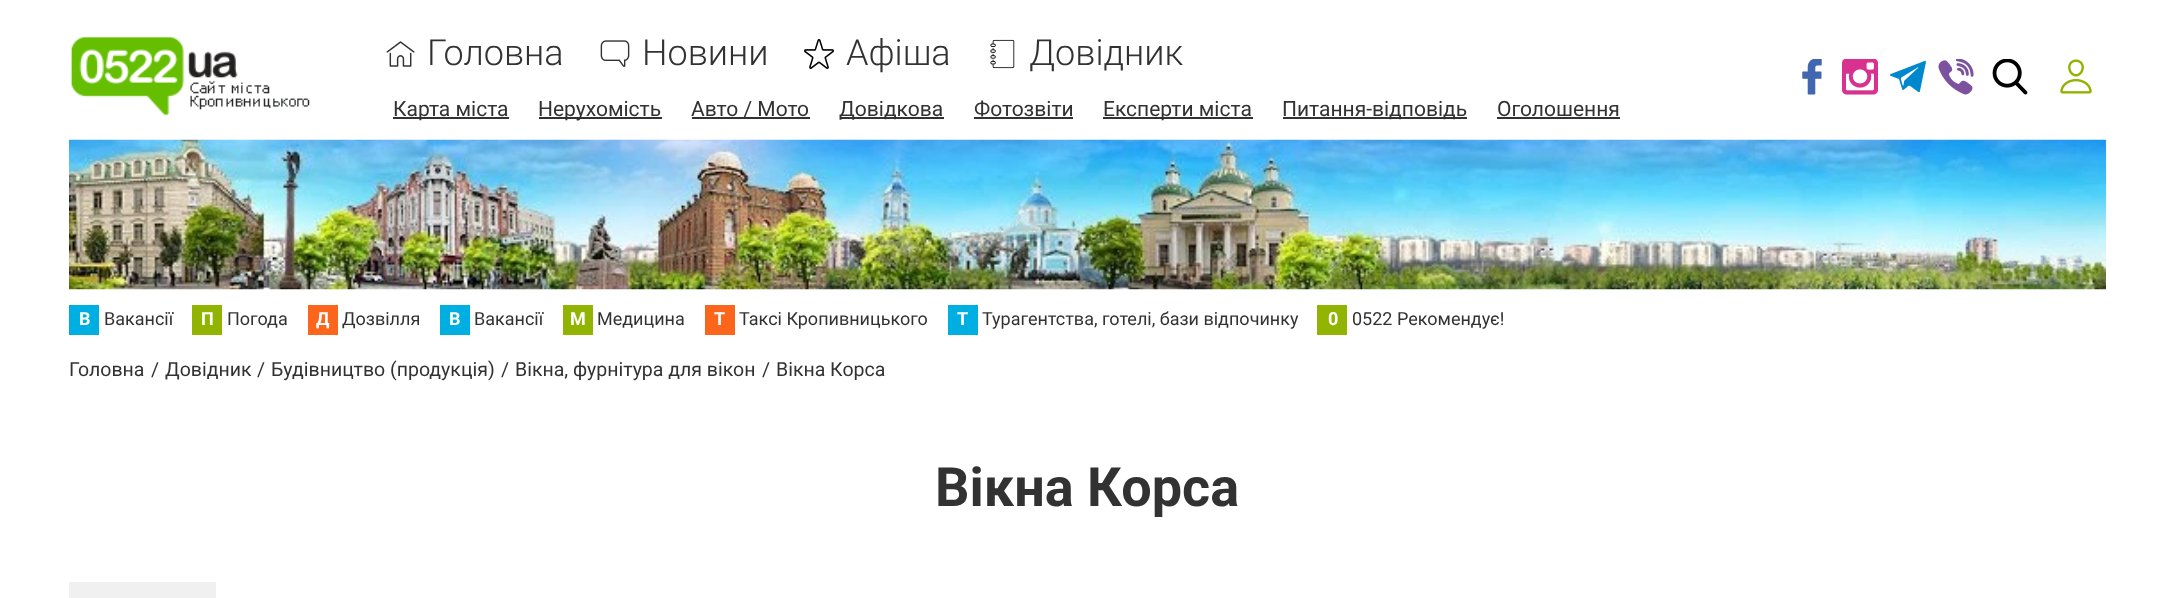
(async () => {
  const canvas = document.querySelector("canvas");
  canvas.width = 2175;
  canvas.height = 598;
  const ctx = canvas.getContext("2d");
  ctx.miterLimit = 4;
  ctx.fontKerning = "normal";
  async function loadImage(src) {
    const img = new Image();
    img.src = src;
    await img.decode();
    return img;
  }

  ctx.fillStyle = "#ffffff";
  ctx.fillRect(0, 0, 2175, 598);
  ctx.drawImage(await loadImage("img/1.png"), 70, 36, 240, 80);
  ctx.drawImage(await loadImage("img/2.png"), 386, 41, 29, 26);
  ctx.drawImage(await loadImage("img/3.png"), 600, 40, 30, 27);
  ctx.drawImage(await loadImage("img/4.png"), 804, 39, 30, 30);
  ctx.drawImage(await loadImage("img/5.png"), 990, 39, 25, 30);
  for (const [x, y, w, h, color] of [
    [393, 117, 116, 2, "#323232"],
    [539, 117, 123, 2, "#323232"],
    [692, 117, 118, 2, "#323232"],
    [840, 117, 104, 2, "#323232"],
    [974, 117, 99, 2, "#323232"],
    [1103, 117, 150, 2, "#323232"],
    [1283, 117, 184, 2, "#323232"],
    [1497, 117, 123, 2, "#323232"],
  ]) {
    ctx.fillStyle = color;
    ctx.fillRect(x, y, w, h);
  }
  ctx.drawImage(await loadImage("img/6.png"), 1802, 59, 20, 36);
  ctx.drawImage(await loadImage("img/7.png"), 1842, 59, 36, 36);
  ctx.drawImage(await loadImage("img/8.png"), 1890, 60, 36, 33);
  ctx.drawImage(await loadImage("img/9.png"), 1938, 59, 36, 36);
  ctx.drawImage(await loadImage("img/10.png"), 1992, 59, 36, 36);
  ctx.drawImage(await loadImage("img/11.png"), 2060, 59, 32, 35);
  ctx.drawImage(await loadImage("img/12.png"), 69, 139, 2037, 151);
  for (const [x, y, w, h, color] of [
    [69, 305, 30, 30, "#00afe1"],
    [192, 305, 30, 30, "#90b400"],
    [308, 305, 30, 30, "#fb661c"],
    [440, 305, 30, 30, "#00afe1"],
    [563, 305, 30, 30, "#90b400"],
    [705, 305, 30, 30, "#fb661c"],
    [948, 305, 30, 30, "#00afe1"],
    [1317, 305, 30, 30, "#90b400"],
    [69, 582, 147, 16, "#f0f0f0"],
  ]) {
    ctx.fillStyle = color;
    ctx.fillRect(x, y, w, h);
  }
  ctx.font = "300 36px Roboto";
  ctx.fillStyle = "#323232";
  for (const [text, x, y] of [
    ["Головна", 427, 65],
    ["Новини", 642, 65],
    ["Афіша", 846, 65],
    ["Довідник", 1029, 65],
  ]) {
    ctx.fillText(text, x, y);
  }
  ctx.font = "21px Roboto";
  for (const [text, x, y] of [
    ["Карта міста", 393, 116],
    ["Нерухомість", 538, 116],
    ["Авто / Мото", 691, 116],
    ["Довідкова", 839, 116],
    ["Фотозвіти", 974, 116],
    ["Експерти міста", 1103, 116],
    ["Питання-відповідь", 1282, 116],
    ["Оголошення", 1497, 116],
  ]) {
    ctx.fillText(text, x, y);
  }
  ctx.font = "bold 18px Roboto";
  ctx.fillStyle = "#ffffff";
  ctx.fillText("В", 79, 325);
  ctx.font = "18px Roboto";
  ctx.fillStyle = "#323232";
  ctx.fillText("Вакансії", 104, 325);
  ctx.font = "bold 18px Roboto";
  ctx.fillStyle = "#ffffff";
  ctx.fillText("П", 201, 325);
  ctx.font = "18px Roboto";
  ctx.fillStyle = "#323232";
  ctx.fillText("Погода", 227, 325);
  ctx.font = "bold 18px Roboto";
  ctx.fillStyle = "#ffffff";
  ctx.fillText("Д", 316, 325);
  ctx.font = "18px Roboto";
  ctx.fillStyle = "#323232";
  ctx.fillText("Дозвілля", 342, 325);
  ctx.font = "bold 18px Roboto";
  ctx.fillStyle = "#ffffff";
  ctx.fillText("В", 449, 325);
  ctx.font = "18px Roboto";
  ctx.fillStyle = "#323232";
  ctx.fillText("Вакансії", 474, 325);
  ctx.font = "bold 18px Roboto";
  ctx.fillStyle = "#ffffff";
  ctx.fillText("М", 570, 325);
  ctx.font = "18px Roboto";
  ctx.fillStyle = "#323232";
  ctx.fillText("Медицина", 597, 325);
  ctx.font = "bold 18px Roboto";
  ctx.fillStyle = "#ffffff";
  ctx.fillText("Т", 714, 325);
  ctx.font = "18px Roboto";
  ctx.fillStyle = "#323232";
  ctx.fillText("Таксі Кропивницького", 739, 325);
  ctx.font = "bold 18px Roboto";
  ctx.fillStyle = "#ffffff";
  ctx.fillText("Т", 957, 325);
  ctx.font = "18px Roboto";
  ctx.fillStyle = "#323232";
  ctx.fillText("Турагентства, готелі, бази відпочинку", 982, 325);
  ctx.font = "bold 18px Roboto";
  ctx.fillStyle = "#ffffff";
  ctx.fillText("0", 1328, 325);
  ctx.font = "18px Roboto";
  ctx.fillStyle = "#323232";
  ctx.fillText("0522 Рекомендує!", 1352, 325);
  ctx.font = "19.5px Roboto";
  for (const [text, x, y] of [
    ["Головна", 69, 376],
    ["/", 151, 376],
    ["Довідник", 165, 376],
    ["/", 257, 376],
    ["Будівництво (продукція)", 271, 376],
    ["/", 501, 376],
    ["Вікна, фурнітура для вікон", 515, 376],
    ["/", 762, 376],
    ["Вікна Корса", 776, 376],
  ]) {
    ctx.fillText(text, x, y);
  }
  ctx.font = "bold 54px Roboto";
  ctx.fillText("Вікна Корса", 935, 506);
})();
